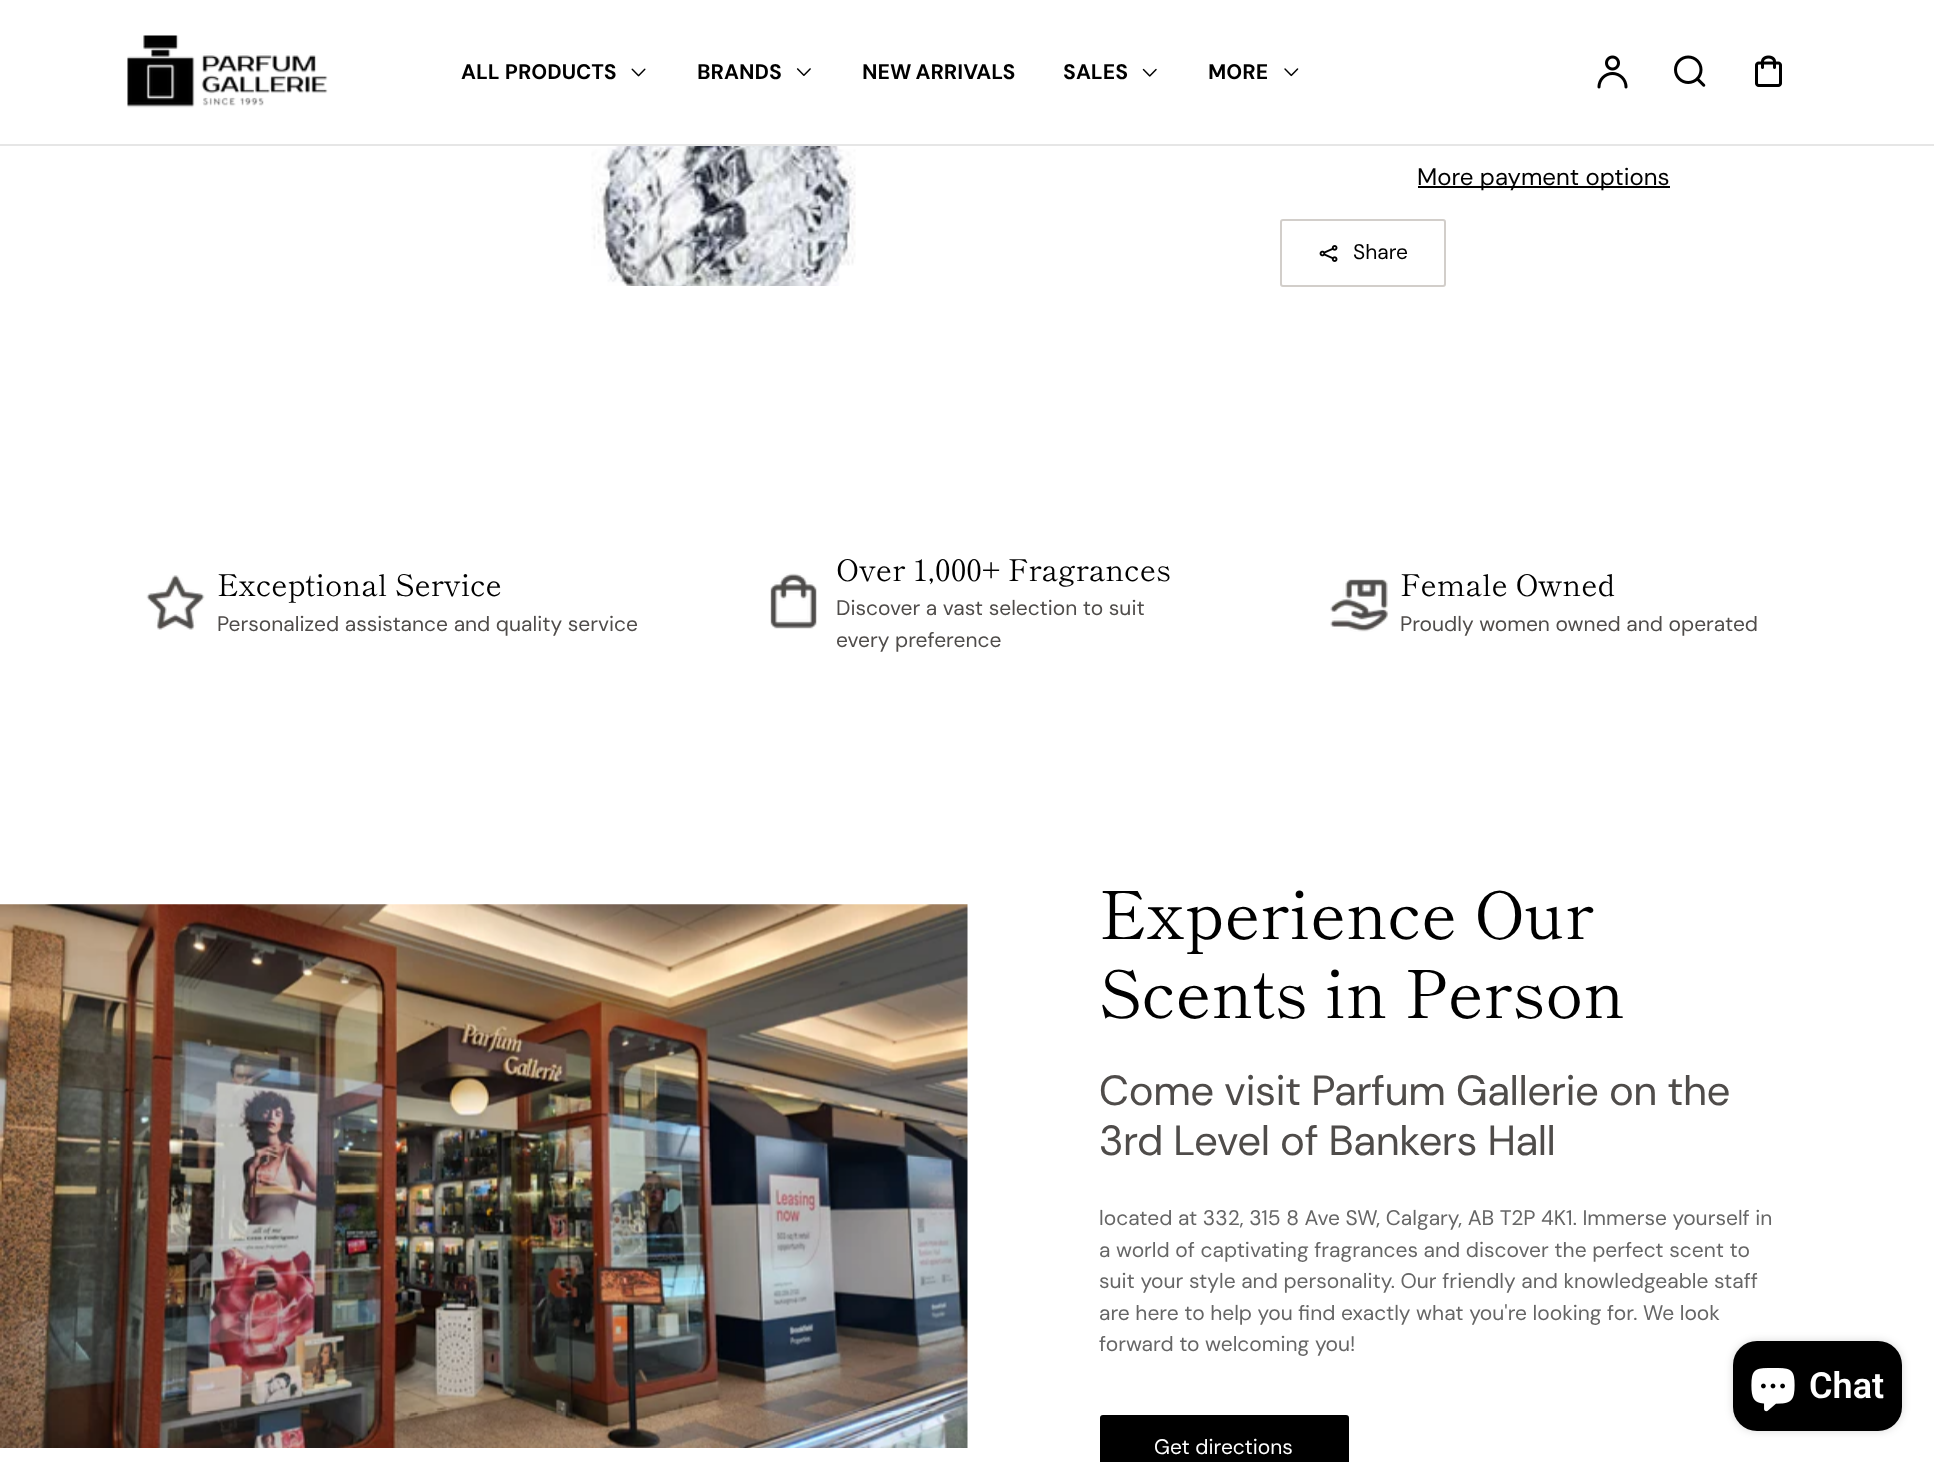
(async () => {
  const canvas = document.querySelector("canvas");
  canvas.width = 1934;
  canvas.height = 1462;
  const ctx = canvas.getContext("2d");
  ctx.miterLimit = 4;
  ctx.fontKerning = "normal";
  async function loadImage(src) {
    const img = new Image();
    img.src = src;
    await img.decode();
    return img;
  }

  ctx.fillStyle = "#ffffff";
  ctx.fillRect(0, 0, 1934, 1462);
  ctx.fillStyle = "#e6e6e6";
  ctx.fillRect(0, 144, 1934, 2);
  ctx.drawImage(await loadImage("img/1.png"), 127, 35, 201, 73);
  ctx.drawImage(await loadImage("img/2.png"), 631, 68, 15, 9);
  ctx.drawImage(await loadImage("img/3.png"), 796, 68, 15, 8);
  ctx.drawImage(await loadImage("img/4.png"), 1142, 68, 15, 9);
  ctx.drawImage(await loadImage("img/5.png"), 1284, 68, 15, 9);
  ctx.drawImage(await loadImage("img/6.png"), 1597, 55, 31, 34);
  ctx.drawImage(await loadImage("img/7.png"), 1674, 55, 32, 32);
  ctx.drawImage(await loadImage("img/8.png"), 1755, 55, 27, 32);
  ctx.drawImage(await loadImage("img/9.png"), 591, 146, 265, 140);
  ctx.fillStyle = "#000000";
  ctx.fillRect(1418, 186, 252, 2);
  ctx.beginPath();
  ctx.roundRect(1281, 220, 164, 66, 2);
  ctx.strokeStyle = "#d2ceca";
  ctx.lineWidth = 2;
  ctx.stroke();
  ctx.drawImage(await loadImage("img/10.png"), 1319, 245, 19, 17);
  ctx.drawImage(await loadImage("img/11.png"), 146, 575, 59, 55);
  ctx.drawImage(await loadImage("img/12.png"), 770, 573, 47, 56);
  ctx.drawImage(await loadImage("img/13.png"), 1330, 579, 59, 53);
  ctx.drawImage(await loadImage("img/14.png"), 0, 904, 968, 544);
  ctx.beginPath();
  ctx.roundRect(1101, 1416, 247, 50, 2);
  ctx.fill();
  ctx.strokeStyle = "#000000";
  ctx.stroke();
  ctx.fillStyle = "rgba(0, 0, 0, 0.15)";
  ctx.filter = "blur(4px)";
  ctx.beginPath();
  ctx.roundRect(1733, 1341, 169, 90, 24);
  ctx.fill();
  ctx.filter = "none";
  ctx.fillStyle = "#000000";
  ctx.beginPath();
  ctx.roundRect(1733, 1341, 169, 90, 24);
  ctx.fill();
  ctx.drawImage(await loadImage("img/15.png"), 1751, 1368, 44, 44);
  ctx.font = "bold 21px DM Sans";
  ctx.fillText("ALL PRODUCTS", 461, 79);
  ctx.fillText("BRANDS", 697, 79);
  ctx.wordSpacing = "-1px";
  ctx.fillText("NEW ARRIVALS", 862, 79);
  ctx.wordSpacing = "0px";
  ctx.fillText("SALES", 1063, 79);
  ctx.fillText("MORE", 1208, 79);
  ctx.font = "24px DM Sans";
  ctx.fillText("More payment options", 1417, 185);
  ctx.font = "21px 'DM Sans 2'";
  ctx.fillText("Share", 1353, 259);
  ctx.font = "30px Shippori Mincho";
  ctx.fillText("Exceptional Service", 217, 596);
  ctx.font = "21px 'DM Sans 2'";
  ctx.fillStyle = "#4f4c4a";
  ctx.fillText("Personalized assistance and quality service", 217, 631);
  ctx.font = "30px Shippori Mincho";
  ctx.fillStyle = "#000000";
  ctx.fillText("Over 1,000+ Fragrances", 836, 581);
  ctx.font = "21px 'DM Sans 2'";
  ctx.fillStyle = "#4f4c4a";
  ctx.fillText("Discover a vast selection to suit", 836, 615);
  ctx.fillText("every preference", 836, 647);
  ctx.font = "30px Shippori Mincho";
  ctx.fillStyle = "#000000";
  ctx.fillText("Female Owned", 1400, 596);
  ctx.font = "21px 'DM Sans 2'";
  ctx.fillStyle = "#4f4c4a";
  ctx.fillText("Proudly women owned and operated", 1400, 631);
  ctx.font = "66px Shippori Mincho";
  ctx.fillStyle = "#000000";
  ctx.fillText("Experience Our", 1099, 939);
  ctx.fillText("Scents in Person", 1099, 1018);
  ctx.font = "42px 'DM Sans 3'";
  ctx.fillStyle = "#4f4c4a";
  ctx.fillText("Come visit Parfum Gallerie on the", 1099, 1105);
  ctx.fillText("3rd Level of Bankers Hall", 1099, 1155);
  ctx.font = "21px 'DM Sans 2'";
  ctx.fillStyle = "#666666";
  for (const [text, x, y] of [
    ["located at 332, 315 8 Ave SW, Calgary, AB T2P 4K1. Immerse yourself in", 1099, 1225],
    ["a world of captivating fragrances and discover the perfect scent to", 1099, 1257],
    ["suit your style and personality. Our friendly and knowledgeable staff", 1099, 1288],
    ["are here to help you find exactly what you're looking for. We look", 1099, 1320],
    ["forward to welcoming you!", 1099, 1351],
  ]) {
    ctx.fillText(text, x, y);
  }
  ctx.fillStyle = "#ffffff";
  ctx.fillText("Get directions", 1154, 1454);
  ctx.font = "600 36px Roboto";
  ctx.fillText("Chat", 1809, 1398);
})();
